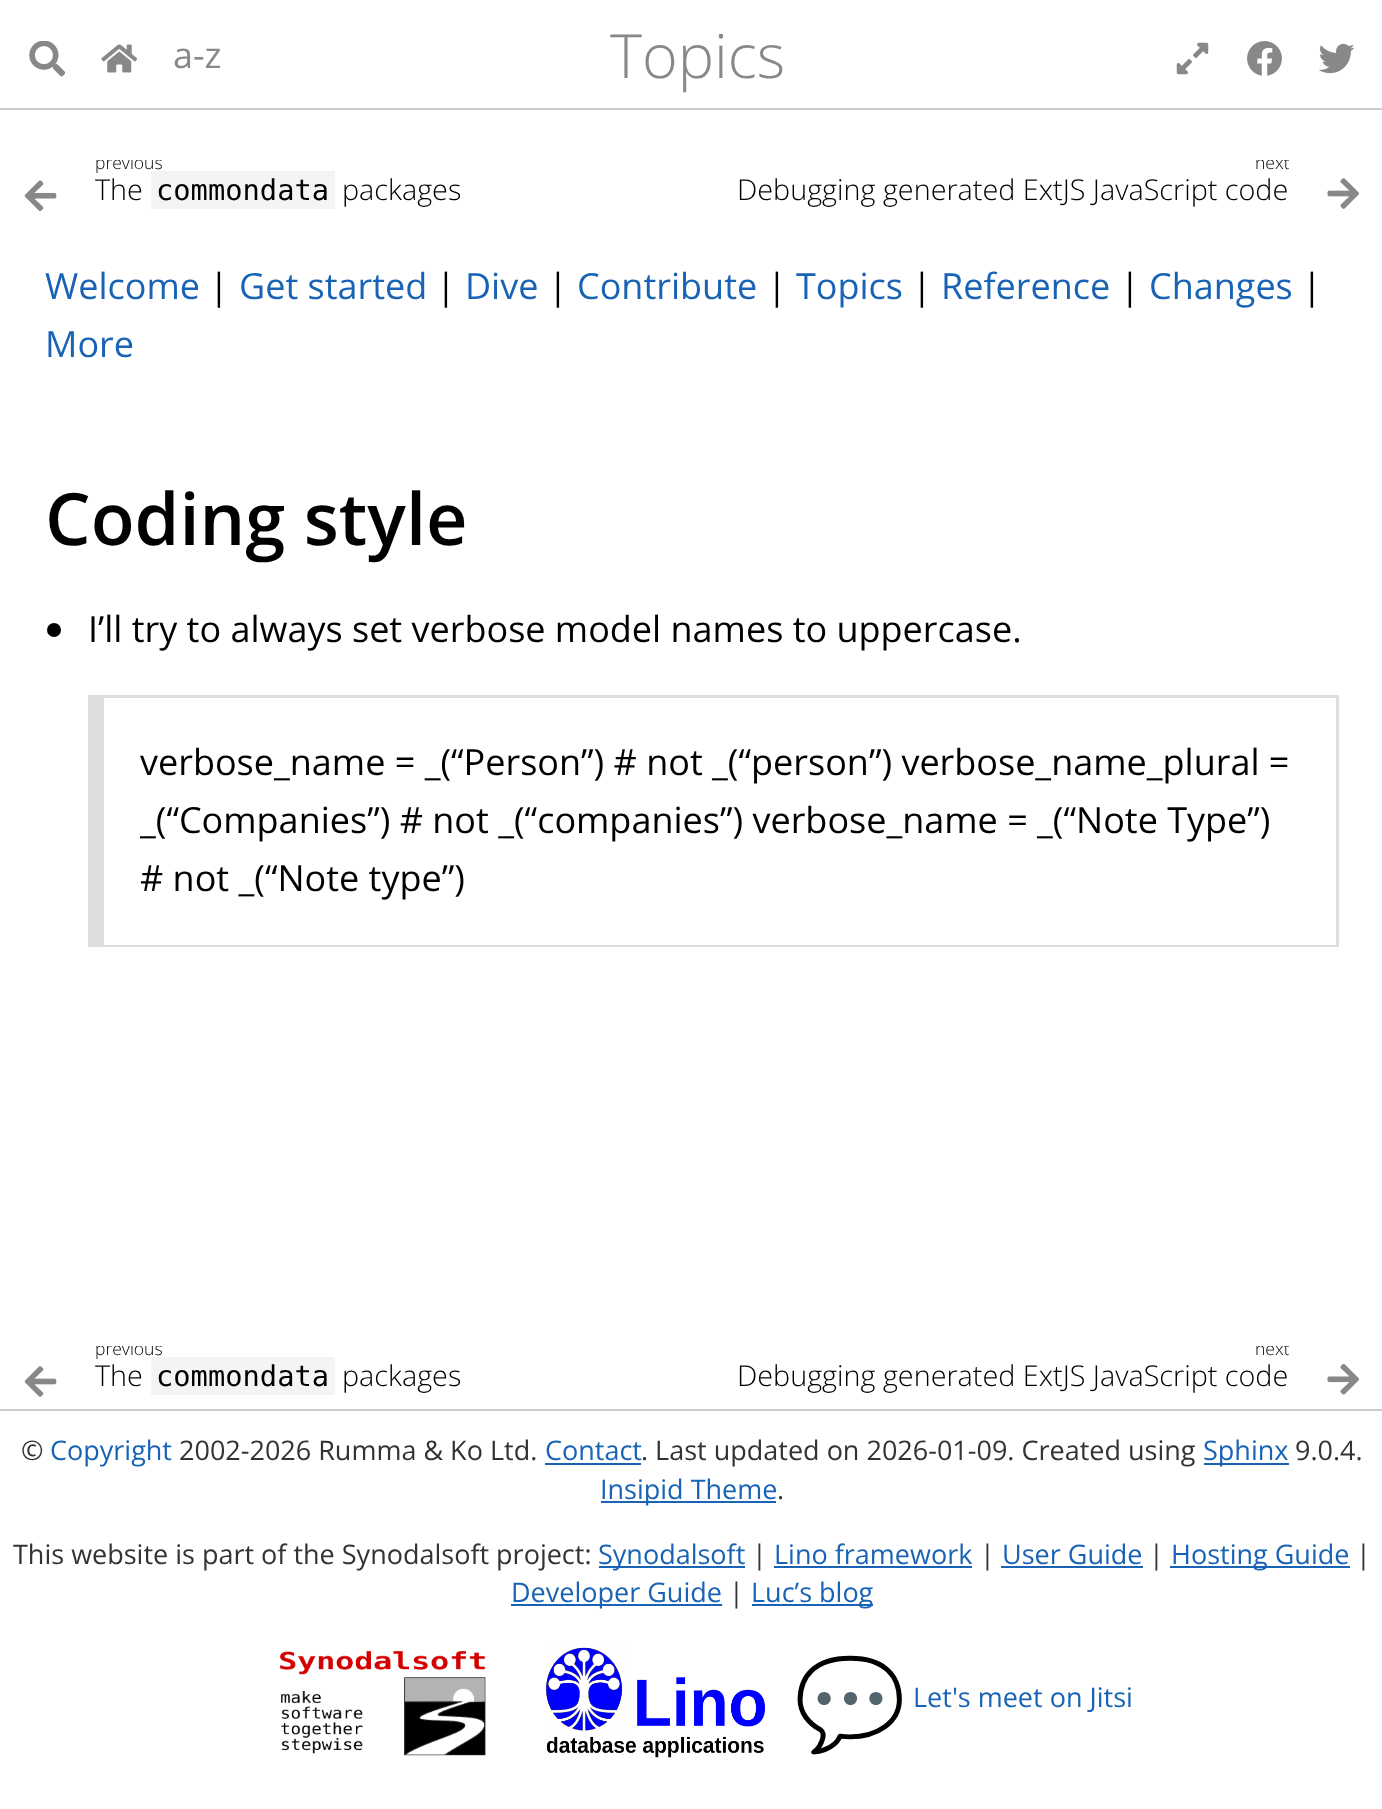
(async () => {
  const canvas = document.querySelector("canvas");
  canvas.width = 1382;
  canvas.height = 1809;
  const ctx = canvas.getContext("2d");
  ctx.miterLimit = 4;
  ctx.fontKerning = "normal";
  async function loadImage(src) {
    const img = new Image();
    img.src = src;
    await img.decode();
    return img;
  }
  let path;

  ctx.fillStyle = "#ffffff";
  ctx.fillRect(0, 0, 1382, 1809);
  ctx.fillStyle = "#cccccc";
  ctx.fillRect(0, 108, 1382, 2);
  ctx.drawImage(await loadImage("img/1.png"), 29, 41, 36, 36);
  ctx.drawImage(await loadImage("img/2.png"), 101, 44, 36, 29);
  ctx.drawImage(await loadImage("img/3.png"), 1176, 42, 33, 33);
  ctx.drawImage(await loadImage("img/4.png"), 1247, 41, 35, 35);
  ctx.drawImage(await loadImage("img/5.png"), 1319, 43, 36, 31);
  ctx.drawImage(await loadImage("img/6.png"), 24, 180, 33, 31);
  ctx.fillStyle = "#f4f4f4";
  ctx.fillRect(151, 171, 184, 38);
  ctx.drawImage(await loadImage("img/7.png"), 1327, 178, 32, 31);
  ctx.fillStyle = "#000000";
  ctx.beginPath();
  ctx.arc(54, 630, 7, 0, Math.PI * 2);
  ctx.fill();
  ctx.fillStyle = "#dddddd";
  path = new Path2D("M88 695H1339L1336 698H104Z");
  ctx.fill(path);
  ctx.fillStyle = "rgba(0, 0, 0, 0.13)";
  path = new Path2D("M1339 695V947L1336 945V698Z");
  ctx.fill(path);
  path = new Path2D("M1339 947H88L104 945H1336Z");
  ctx.fill(path);
  path = new Path2D("M88 947V695L104 698V945Z");
  ctx.fill(path);
  ctx.drawImage(await loadImage("img/8.png"), 24, 1366, 33, 31);
  ctx.fillStyle = "#f4f4f4";
  ctx.fillRect(151, 1357, 184, 38);
  ctx.drawImage(await loadImage("img/9.png"), 1327, 1363, 32, 32);
  for (const [x, y, w, h, color] of [
    [0, 1409, 1382, 2, "#cccccc"],
    [545, 1463, 96, 2, "#1863b5"],
    [1204, 1463, 85, 2, "#1863b5"],
    [601, 1501, 175, 2, "#1863b5"],
    [599, 1566, 146, 2, "#1863b5"],
    [774, 1566, 198, 2, "#1863b5"],
    [1001, 1566, 142, 2, "#1863b5"],
    [1170, 1566, 180, 2, "#1863b5"],
    [511, 1604, 211, 2, "#1863b5"],
    [752, 1604, 121, 2, "#1863b5"],
  ]) {
    ctx.fillStyle = color;
    ctx.fillRect(x, y, w, h);
  }
  ctx.drawImage(await loadImage("img/10.png"), 280, 1650, 206, 106);
  ctx.drawImage(await loadImage("img/11.png"), 546, 1647, 219, 111);
  ctx.font = "36px Open Sans";
  ctx.fillStyle = "#888888";
  ctx.fillText("a-z", 173, 68);
  ctx.font = "300 61px Open Sans";
  ctx.fillText("Topics", 610, 78);
  ctx.save();
  ctx.beginPath();
  ctx.rect(95, 160, 598, 63);
  ctx.clip();
  ctx.font = "300 17.5px Open Sans";
  ctx.fillStyle = "#000000";
  ctx.fillText("previous", 95, 169);
  ctx.restore();
  ctx.font = "300 28.75px Open Sans";
  ctx.fillStyle = "#000000";
  ctx.fillText("The", 95, 200);
  ctx.font = "28.75px DejaVu Sans Mono";
  ctx.fillText("commondata", 156, 200);
  ctx.font = "300 28.75px Open Sans";
  ctx.fillText("packages", 342, 200);
  ctx.save();
  ctx.beginPath();
  ctx.rect(693, 160, 596, 61);
  ctx.clip();
  ctx.font = "300 17.5px Open Sans";
  ctx.fillText("next", 1255, 169);
  ctx.restore();
  ctx.fillText("Debugging generated ExtJS JavaScript code", 737, 200);
  ctx.font = "36px Open Sans";
  ctx.fillStyle = "#1863b5";
  ctx.fillText("Welcome", 45, 299);
  ctx.fillStyle = "#000000";
  ctx.fillText("|", 209, 299);
  ctx.fillStyle = "#1863b5";
  ctx.fillText("Get started", 239, 299);
  ctx.fillStyle = "#000000";
  ctx.fillText("|", 436, 299);
  ctx.fillStyle = "#1863b5";
  ctx.fillText("Dive", 465, 299);
  ctx.fillStyle = "#000000";
  ctx.fillText("|", 548, 299);
  ctx.fillStyle = "#1863b5";
  ctx.fillText("Contribute", 577, 299);
  ctx.fillStyle = "#000000";
  ctx.fillText("|", 767, 299);
  ctx.fillStyle = "#1863b5";
  ctx.fillText("Topics", 796, 299);
  ctx.fillStyle = "#000000";
  ctx.fillText("|", 912, 299);
  ctx.fillStyle = "#1863b5";
  ctx.fillText("Reference", 941, 299);
  ctx.fillStyle = "#000000";
  ctx.fillText("|", 1120, 299);
  ctx.fillStyle = "#1863b5";
  ctx.fillText("Changes", 1149, 299);
  ctx.fillStyle = "#000000";
  ctx.fillText("|", 1302, 299);
  ctx.fillStyle = "#1863b5";
  ctx.fillText("More", 45, 357);
  ctx.font = "600 72px Open Sans";
  ctx.fillStyle = "#000000";
  ctx.fillText("Coding style", 45, 545);
  ctx.font = "36px Open Sans";
  for (const [text, x, y] of [
    ["I’ll try to always set verbose model names to uppercase.", 88, 642],
    ["verbose_name = _(“Person”) # not _(“person”) verbose_name_plural =", 140, 775],
    ["_(“Companies”) # not _(“companies”) verbose_name = _(“Note Type”)", 140, 833],
    ["# not _(“Note type”)", 140, 891],
  ]) {
    ctx.fillText(text, x, y);
  }
  ctx.save();
  ctx.beginPath();
  ctx.rect(95, 1346, 598, 63);
  ctx.clip();
  ctx.font = "300 17.5px Open Sans";
  ctx.fillText("previous", 95, 1355);
  ctx.restore();
  ctx.font = "300 28.75px Open Sans";
  ctx.fillText("The", 95, 1386);
  ctx.font = "28.75px DejaVu Sans Mono";
  ctx.fillText("commondata", 156, 1386);
  ctx.font = "300 28.75px Open Sans";
  ctx.fillText("packages", 342, 1386);
  ctx.save();
  ctx.beginPath();
  ctx.rect(693, 1346, 596, 60);
  ctx.clip();
  ctx.font = "300 17.5px Open Sans";
  ctx.fillText("next", 1255, 1355);
  ctx.restore();
  ctx.fillText("Debugging generated ExtJS JavaScript code", 737, 1386);
  ctx.font = "27px Open Sans";
  ctx.fillStyle = "#333333";
  ctx.fillText("©", 21, 1460);
  ctx.fillStyle = "#1863b5";
  ctx.fillText("Copyright", 50, 1460);
  ctx.fillStyle = "#333333";
  ctx.fillText("2002-2026 Rumma & Ko Ltd.", 179, 1460);
  ctx.fillStyle = "#1863b5";
  ctx.fillText("Contact", 545, 1460);
  ctx.fillStyle = "#333333";
  ctx.fillText(". Last updated on 2026-01-09. Created using", 641, 1460);
  ctx.fillStyle = "#1863b5";
  ctx.fillText("Sphinx", 1203, 1460);
  ctx.fillStyle = "#333333";
  ctx.fillText("9.0.4.", 1295, 1460);
  ctx.fillStyle = "#1863b5";
  ctx.fillText("Insipid Theme", 600, 1499);
  ctx.fillStyle = "#333333";
  ctx.fillText(".", 777, 1499);
  ctx.fillText("This website is part of the Synodalsoft project:", 13, 1564);
  ctx.fillStyle = "#1863b5";
  ctx.fillText("Synodalsoft", 598, 1564);
  ctx.fillStyle = "#333333";
  ctx.fillText("|", 752, 1564);
  ctx.fillStyle = "#1863b5";
  ctx.fillText("Lino framework", 774, 1564);
  ctx.fillStyle = "#333333";
  ctx.fillText("|", 980, 1564);
  ctx.fillStyle = "#1863b5";
  ctx.fillText("User Guide", 1002, 1564);
  ctx.fillStyle = "#333333";
  ctx.fillText("|", 1149, 1564);
  ctx.fillStyle = "#1863b5";
  ctx.fillText("Hosting Guide", 1171, 1564);
  ctx.fillStyle = "#333333";
  ctx.fillText("|", 1356, 1564);
  ctx.fillStyle = "#1863b5";
  ctx.fillText("Developer Guide", 511, 1602);
  ctx.fillStyle = "#333333";
  ctx.fillText("|", 729, 1602);
  ctx.fillStyle = "#1863b5";
  ctx.fillText("Luc’s blog", 751, 1602);
  ctx.font = "90px Noto Color Emoji";
  ctx.fillText("💬", 794, 1735);
  ctx.font = "27px Open Sans";
  ctx.fillText("Let's meet on Jitsi", 913, 1707);
})();
